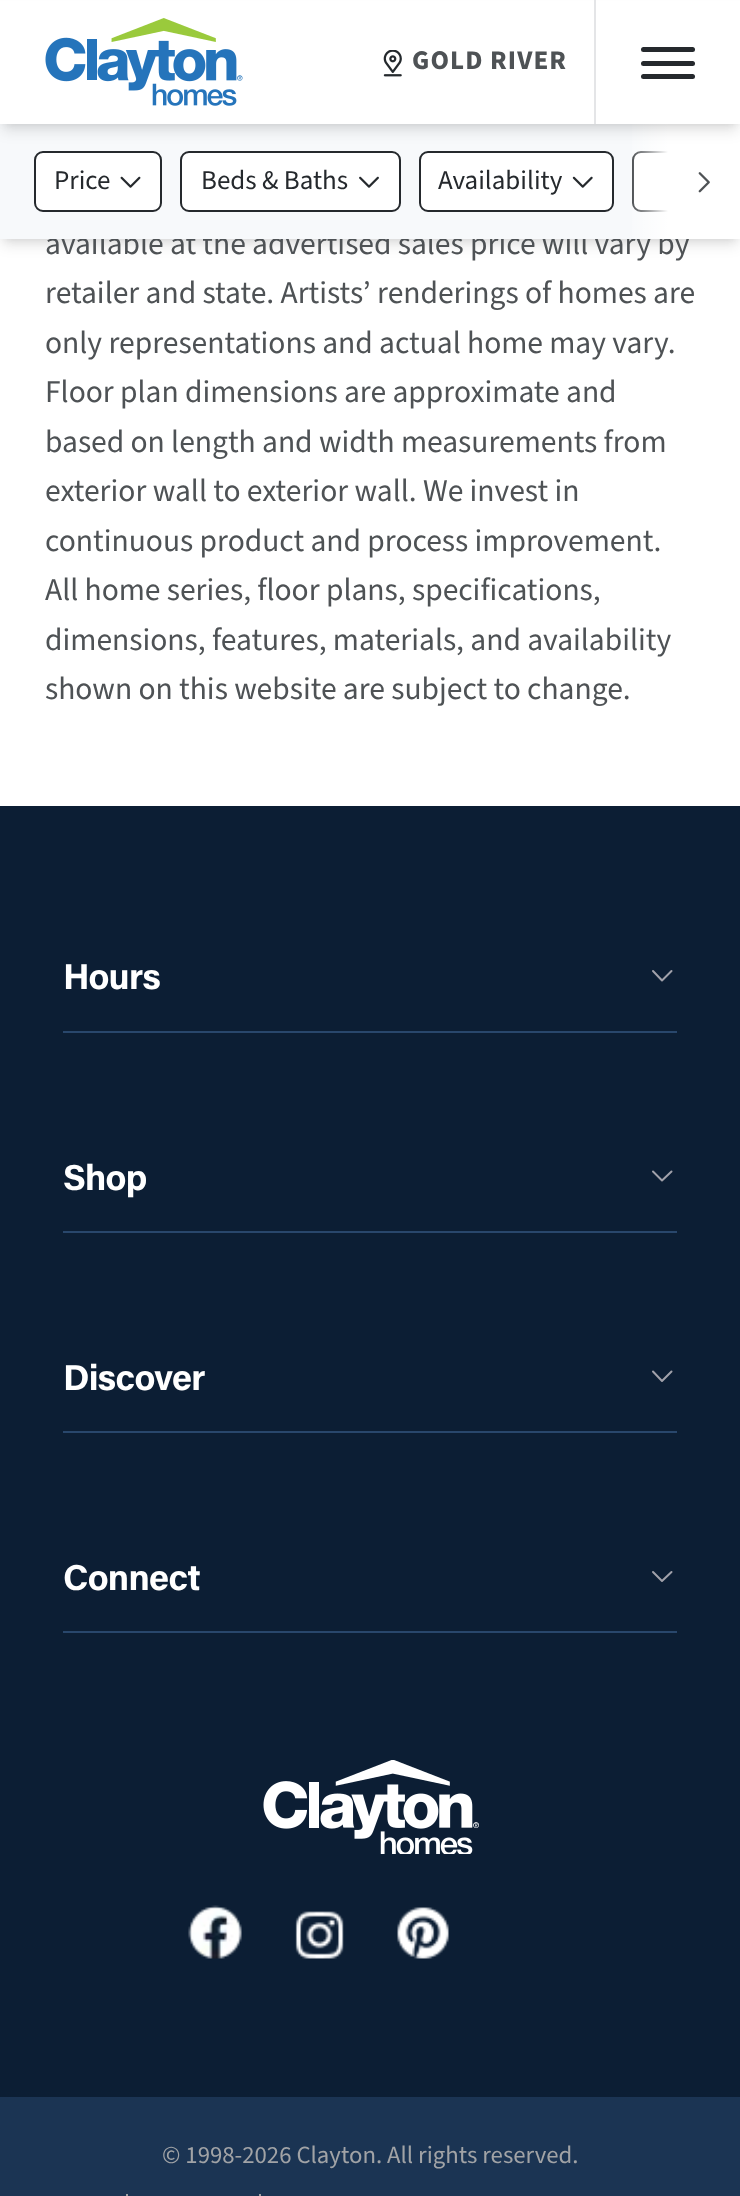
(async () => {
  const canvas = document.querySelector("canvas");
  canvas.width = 740;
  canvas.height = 2196;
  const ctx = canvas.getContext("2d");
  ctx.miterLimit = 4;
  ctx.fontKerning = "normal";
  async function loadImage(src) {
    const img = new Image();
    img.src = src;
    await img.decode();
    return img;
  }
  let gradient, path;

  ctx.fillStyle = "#ffffff";
  ctx.fillRect(0, 0, 740, 2196);
  ctx.fillStyle = "rgba(0, 0, 0, 0.1)";
  ctx.filter = "blur(4.5px)";
  ctx.beginPath();
  ctx.rect(5, 133, 731, 106);
  ctx.fill();
  ctx.filter = "none";
  ctx.filter = "blur(7px)";
  ctx.beginPath();
  ctx.rect(2, 135, 736, 110);
  ctx.fill();
  ctx.filter = "none";
  ctx.fillStyle = "#0c1e34";
  ctx.fillRect(0, 806, 740, 1291);
  ctx.fillStyle = "#29476c";
  ctx.fillRect(63, 1031, 614, 2);
  path = new Path2D("M671.5 971L662 980.5L653 971");
  ctx.strokeStyle = "#a1a1aa";
  ctx.lineWidth = 2;
  ctx.lineCap = "round";
  ctx.lineJoin = "round";
  ctx.stroke(path);
  ctx.fillRect(63, 1231, 614, 2);
  path = new Path2D("M671.5 1171.5L662 1180.5L653 1171.5");
  ctx.stroke(path);
  ctx.fillRect(63, 1431, 614, 2);
  path = new Path2D("M671.5 1371.5L662 1381L653 1371.5");
  ctx.stroke(path);
  ctx.fillRect(63, 1631, 614, 2);
  path = new Path2D("M671.5 1572L662 1581L653 1572");
  ctx.stroke(path);
  ctx.drawImage(await loadImage("img/7.png"), 263, 1760, 216, 94);
  ctx.drawImage(await loadImage("img/8.png"), 188, 1905, 54, 54);
  ctx.drawImage(await loadImage("img/9.png"), 295, 1911, 49, 48);
  ctx.drawImage(await loadImage("img/10.png"), 397, 1907, 52, 52);
  for (const [x, y, w, h, color] of [
    [0, 2097, 740, 99, "#1b3453"],
    [126, 2194, 2, 2, "#a1a3a6"],
    [259, 2194, 2, 2, "#a1a3a6"],
  ]) {
    ctx.fillStyle = color;
    ctx.fillRect(x, y, w, h);
  }
  ctx.font = "31.5px Source Sans Pro";
  ctx.fillStyle = "#4e5255";
  ctx.fillText("available at the advertised sales price will vary by", 45, 254);
  ctx.fillStyle = "#f7f9fb";
  ctx.fillRect(0, 124, 668, 115);
  ctx.fillStyle = "#ffffff";
  ctx.beginPath();
  ctx.roundRect(632, 151, 108, 61, [9, 0, 0, 9]);
  ctx.fill();
  ctx.beginPath();
  ctx.roundRect(633, 152, 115, 59, 8);
  ctx.strokeStyle = "#25292d";
  ctx.lineJoin = "miter";
  ctx.stroke();
  gradient = ctx.createLinearGradient(668, 181, 623, 181);
  gradient.addColorStop(0, "#ffffff");
  gradient.addColorStop(1, "rgba(255, 255, 255, 0)");
  ctx.fillStyle = gradient;
  ctx.fillRect(632, 124, 36, 115);
  ctx.fillStyle = "#ffffff";
  ctx.fillRect(668, 125, 72, 114);
  ctx.beginPath();
  ctx.roundRect(420, 152, 193, 59, 8);
  ctx.fill();
  ctx.stroke();
  ctx.beginPath();
  ctx.roundRect(181, 152, 219, 59, 8);
  ctx.fill();
  ctx.stroke();
  ctx.beginPath();
  ctx.roundRect(35, 152, 126, 59, 8);
  ctx.fill();
  ctx.stroke();
  ctx.fillStyle = "rgba(0, 0, 0, 0.1)";
  ctx.filter = "blur(7px)";
  ctx.beginPath();
  ctx.rect(2, 11, 736, 120);
  ctx.fill();
  ctx.filter = "none";
  ctx.filter = "blur(4.5px)";
  ctx.beginPath();
  ctx.rect(5, 9, 731, 115);
  ctx.fill();
  ctx.filter = "none";
  ctx.fillStyle = "#ffffff";
  ctx.fillRect(0, 1, 740, 123);
  ctx.drawImage(await loadImage("img/2.png"), 383, 50, 19, 27);
  ctx.letterSpacing = "1.1px";
  ctx.font = "bold 27px Source Sans Pro";
  ctx.fillStyle = "#4e5255";
  ctx.fillText("GOLD RIVER", 412, 69);
  ctx.fillStyle = "#e4e5e7";
  ctx.fillRect(594, 0, 2, 124);
  ctx.fillStyle = "#25292d";
  ctx.beginPath();
  ctx.roundRect(641, 74, 54, 5, 2.5);
  ctx.fill();
  ctx.beginPath();
  ctx.roundRect(641, 47, 54, 5, 2.5);
  ctx.fill();
  ctx.beginPath();
  ctx.roundRect(641, 61, 54, 5, 2.5);
  ctx.fill();
  ctx.drawImage(await loadImage("img/1.png"), 45, 18, 198, 88);
  ctx.drawImage(await loadImage("img/6.png"), 698, 172, 12, 21);
  ctx.drawImage(await loadImage("img/5.png"), 572, 176, 21, 12);
  ctx.letterSpacing = "0px";
  ctx.font = "27px Source Sans Pro";
  ctx.fillText("Availability", 438, 189);
  ctx.drawImage(await loadImage("img/4.png"), 359, 176, 20, 12);
  ctx.fillText("Beds & Baths", 201, 189);
  ctx.drawImage(await loadImage("img/3.png"), 120, 176, 21, 12);
  ctx.fillText("Price", 54, 189);
  ctx.font = "31.5px Source Sans Pro";
  ctx.fillStyle = "#4e5255";
  for (const [text, x, y] of [
    ["retailer and state. Artists’ renderings of homes are", 45, 303],
    ["only representations and actual home may vary.", 45, 353],
    ["Floor plan dimensions are approximate and", 45, 402],
    ["based on length and width measurements from", 45, 452],
    ["exterior wall to exterior wall. We invest in", 45, 501],
    ["continuous product and process improvement.", 45, 551],
    ["All home series, floor plans, specifications,", 45, 600],
    ["dimensions, features, materials, and availability", 45, 650],
    ["shown on this website are subject to change.", 45, 699],
  ]) {
    ctx.fillText(text, x, y);
  }
  ctx.letterSpacing = "-0.75px";
  ctx.font = "bold 36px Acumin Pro";
  ctx.fillStyle = "#ffffff";
  for (const [text, x, y] of [
    ["Hours", 63, 989],
    ["Shop", 63, 1190],
    ["Discover", 63, 1390],
    ["Connect", 63, 1590],
  ]) {
    ctx.fillText(text, x, y);
  }
  ctx.letterSpacing = "0px";
  ctx.font = "24.75px Source Sans Pro";
  ctx.fillStyle = "#a1a3a6";
  ctx.fillText("© 1998-2026 Clayton. All rights reserved.", 162, 2163);
})();
